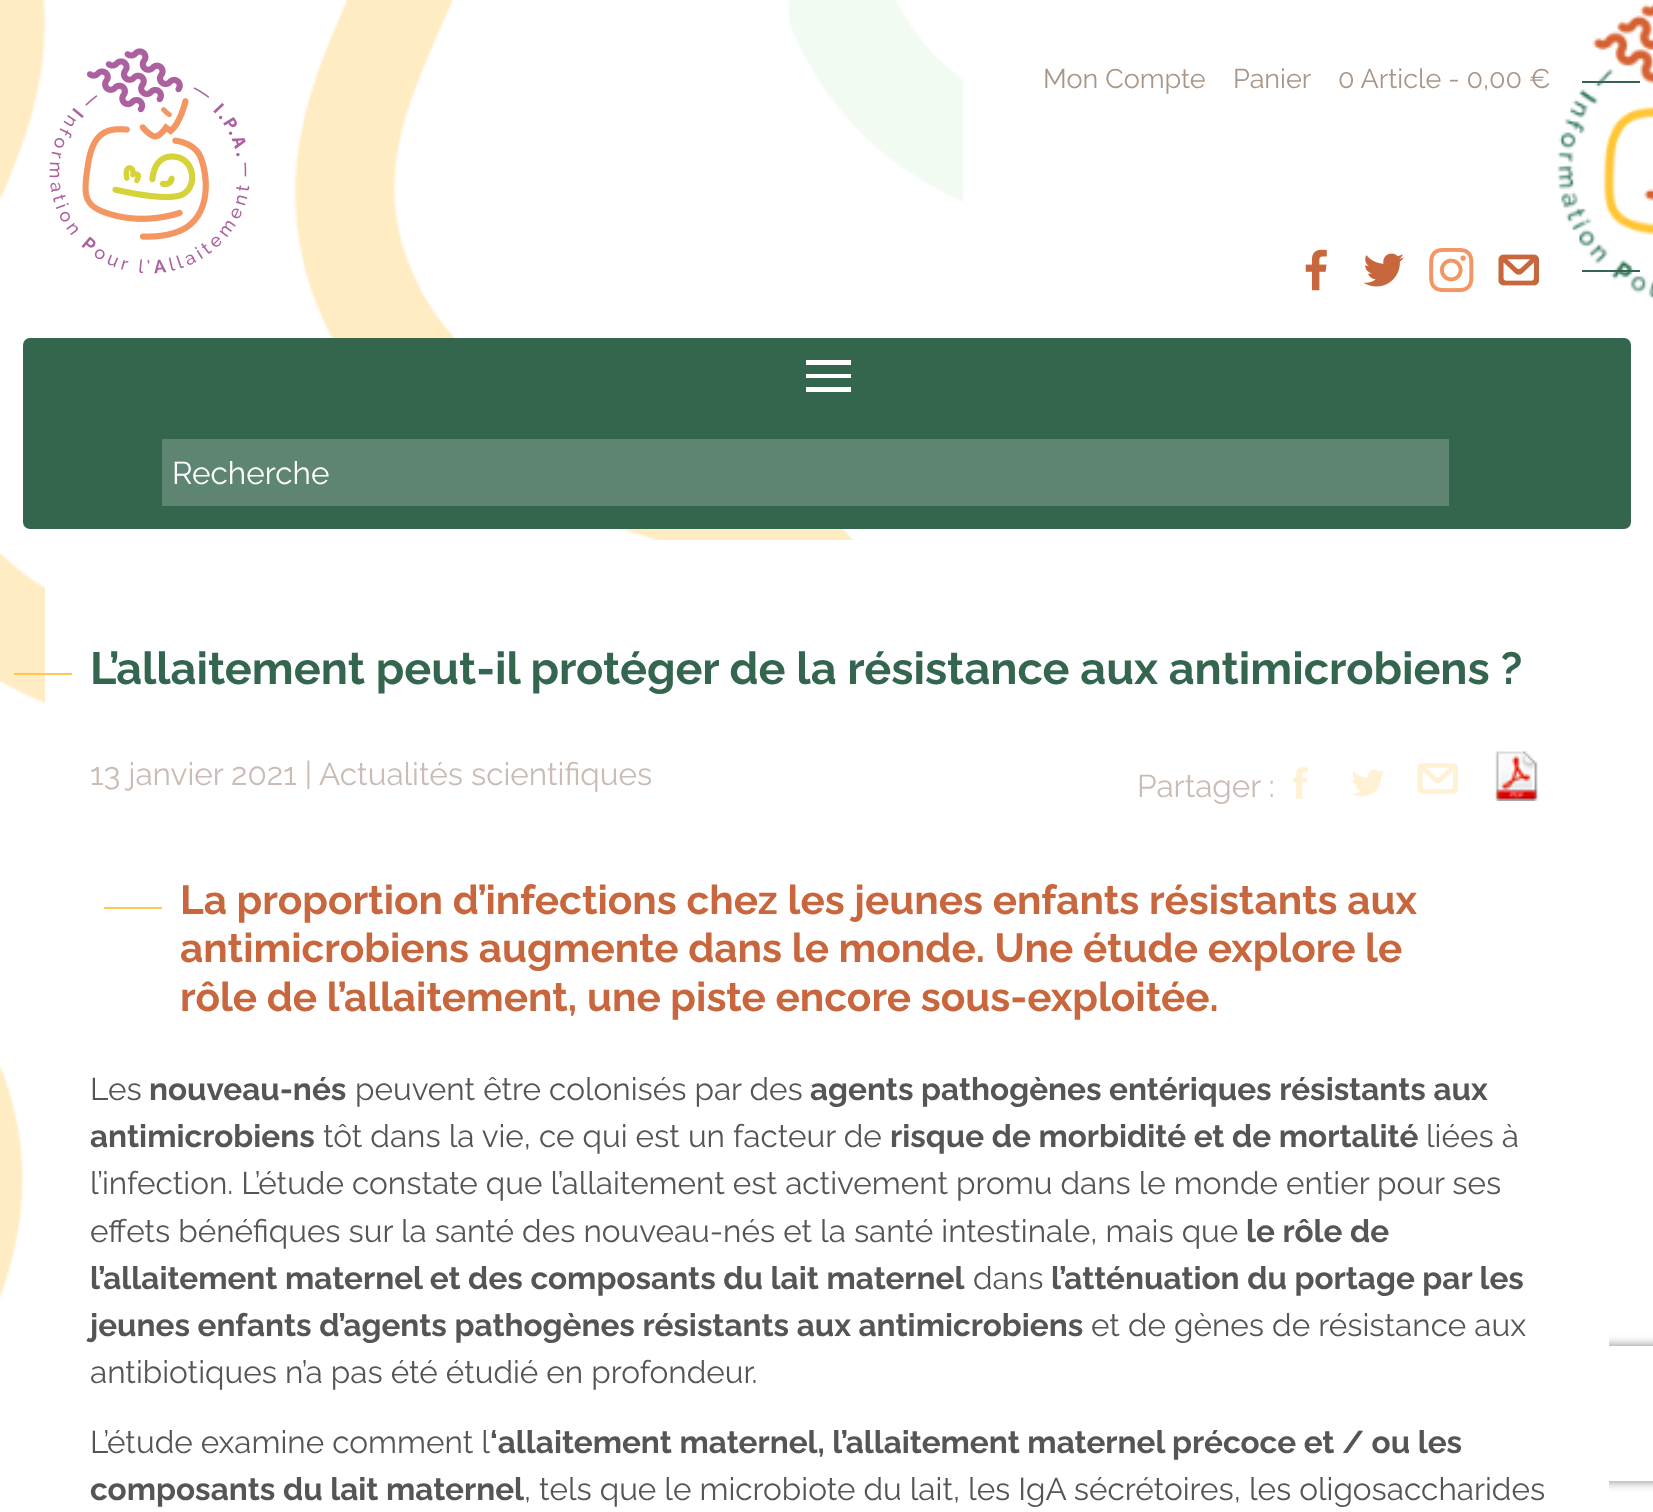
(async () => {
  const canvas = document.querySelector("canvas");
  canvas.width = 1653;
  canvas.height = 1512;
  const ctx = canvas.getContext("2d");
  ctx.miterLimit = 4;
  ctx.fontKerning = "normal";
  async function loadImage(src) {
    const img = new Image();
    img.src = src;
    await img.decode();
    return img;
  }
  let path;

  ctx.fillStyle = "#ffffff";
  ctx.fillRect(0, 0, 1653, 1512);
  ctx.drawImage(await loadImage("img/1.png"), 0, 0, 1653, 1512);
  ctx.drawImage(await loadImage("img/2.png"), 49, 48, 201, 226);
  ctx.fillStyle = "#34664e";
  ctx.fillRect(1582, 81, 58, 2);
  ctx.drawImage(await loadImage("img/3.png"), 1305, 249, 22, 42);
  ctx.drawImage(await loadImage("img/4.png"), 1363, 253, 41, 34);
  ctx.drawImage(await loadImage("img/5.png"), 1429, 248, 45, 45);
  ctx.drawImage(await loadImage("img/6.png"), 1498, 254, 41, 32);
  ctx.fillRect(1582, 270, 58, 2);
  ctx.beginPath();
  ctx.roundRect(23, 338, 1608, 191, 7);
  ctx.fill();
  for (const [x, y, w, h, color] of [
    [806, 360, 45, 5, "#ffffff"],
    [806, 374, 45, 4, "#ffffff"],
    [806, 387, 45, 5, "#ffffff"],
    [162, 439, 1287, 67, "#5d8571"],
  ]) {
    ctx.fillStyle = color;
    ctx.fillRect(x, y, w, h);
  }
  ctx.save();
  path = new Path2D("M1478 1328H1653V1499H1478ZM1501 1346H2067C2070 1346 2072 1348 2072 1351V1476C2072 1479 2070 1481 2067 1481H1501C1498 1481 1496 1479 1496 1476V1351C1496 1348 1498 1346 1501 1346Z");
  ctx.clip(path, "evenodd");
  ctx.fillStyle = "#808080";
  ctx.filter = "blur(5.5px)";
  ctx.beginPath();
  ctx.roundRect(1496, 1346, 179, 135, 5);
  ctx.fill();
  ctx.filter = "none";
  ctx.restore();
  ctx.fillStyle = "#ffffff";
  ctx.beginPath();
  ctx.roundRect(45, 540, 1564, 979, 7);
  ctx.fill();
  ctx.fillStyle = "#ffc854";
  ctx.fillRect(14, 673, 58, 2);
  ctx.drawImage(await loadImage("img/7.png"), 1292, 767, 16, 32);
  ctx.drawImage(await loadImage("img/8.png"), 1352, 769, 32, 28);
  ctx.drawImage(await loadImage("img/9.png"), 1417, 763, 41, 31);
  ctx.drawImage(await loadImage("img/10.png"), 1495, 751, 43, 50);
  ctx.fillRect(104, 907, 58, 2);
  ctx.font = "27px Raleway";
  ctx.fillStyle = "#aa9686";
  for (const [text, x, y] of [
    ["Mon Compte", 1043, 88],
    ["Panier", 1233, 88],
    ["0 Article - 0,00 €", 1338, 88],
  ]) {
    ctx.fillText(text, x, y);
  }
  ctx.font = "31.5px Raleway";
  ctx.fillStyle = "#ffffff";
  ctx.fillText("Recherche", 172, 484);
  ctx.font = "bold 45px Raleway";
  ctx.fillStyle = "#34664e";
  ctx.fillText("L’allaitement peut-il protéger de la résistance aux antimicrobiens ?", 90, 684);
  ctx.font = "31.5px Raleway";
  ctx.fillStyle = "#cabbb3";
  for (const [text, x, y] of [
    ["13 janvier 2021 |", 90, 785],
    ["Actualités scientifiques", 319, 785],
    ["Partager :", 1137, 797],
  ]) {
    ctx.fillText(text, x, y);
  }
  ctx.font = "bold 40.5px Raleway";
  ctx.fillStyle = "#c8673e";
  for (const [text, x, y] of [
    ["La proportion d’infections chez les jeunes enfants résistants aux", 180, 914],
    ["antimicrobiens augmente dans le monde. Une étude explore le", 180, 962],
    ["rôle de l’allaitement, une piste encore sous-exploitée.", 180, 1011],
  ]) {
    ctx.fillText(text, x, y);
  }
  ctx.font = "31.5px Raleway";
  ctx.fillStyle = "#555555";
  ctx.fillText("Les", 90, 1100);
  ctx.font = "bold 31.5px Raleway";
  ctx.fillText("nouveau-nés", 149, 1100);
  ctx.font = "31.5px Raleway";
  ctx.fillText("peuvent être colonisés par des", 355, 1100);
  ctx.font = "bold 31.5px Raleway";
  ctx.fillText("agents pathogènes entériques résistants aux", 810, 1100);
  ctx.fillText("antimicrobiens", 90, 1147);
  ctx.font = "31.5px Raleway";
  ctx.fillText("tôt dans la vie, ce qui est un facteur de", 323, 1147);
  ctx.font = "bold 31.5px Raleway";
  ctx.fillText("risque de morbidité et de mortalité", 890, 1147);
  ctx.font = "31.5px Raleway";
  for (const [text, x, y] of [
    ["liées à", 1426, 1147],
    ["l’infection. L’étude constate que l’allaitement est activement promu dans le monde entier pour ses", 90, 1194],
    ["effets bénéfiques sur la santé des nouveau-nés et la santé intestinale, mais que", 90, 1242],
  ]) {
    ctx.fillText(text, x, y);
  }
  ctx.font = "bold 31.5px Raleway";
  ctx.fillText("le rôle de", 1246, 1242);
  ctx.fillText("l’allaitement maternel et des composants du lait maternel", 90, 1289);
  ctx.font = "31.5px Raleway";
  ctx.fillText("dans", 973, 1289);
  ctx.font = "bold 31.5px Raleway";
  ctx.fillText("l’atténuation du portage par les", 1051, 1289);
  ctx.fillText("jeunes enfants d’agents pathogènes résistants aux antimicrobiens", 90, 1336);
  ctx.font = "31.5px Raleway";
  for (const [text, x, y] of [
    ["et de gènes de résistance aux", 1091, 1336],
    ["antibiotiques n’a pas été étudié en profondeur.", 90, 1383],
    ["L’étude examine comment l", 90, 1453],
  ]) {
    ctx.fillText(text, x, y);
  }
  ctx.font = "bold 31.5px Raleway";
  ctx.fillText("‘allaitement maternel, l’allaitement maternel précoce et / ou les", 490, 1453);
  ctx.fillText("composants du lait maternel", 90, 1500);
  ctx.font = "31.5px Raleway";
  ctx.fillText(", tels que le microbiote du lait, les IgA sécrétoires, les oligosaccharides", 524, 1500);
})();
